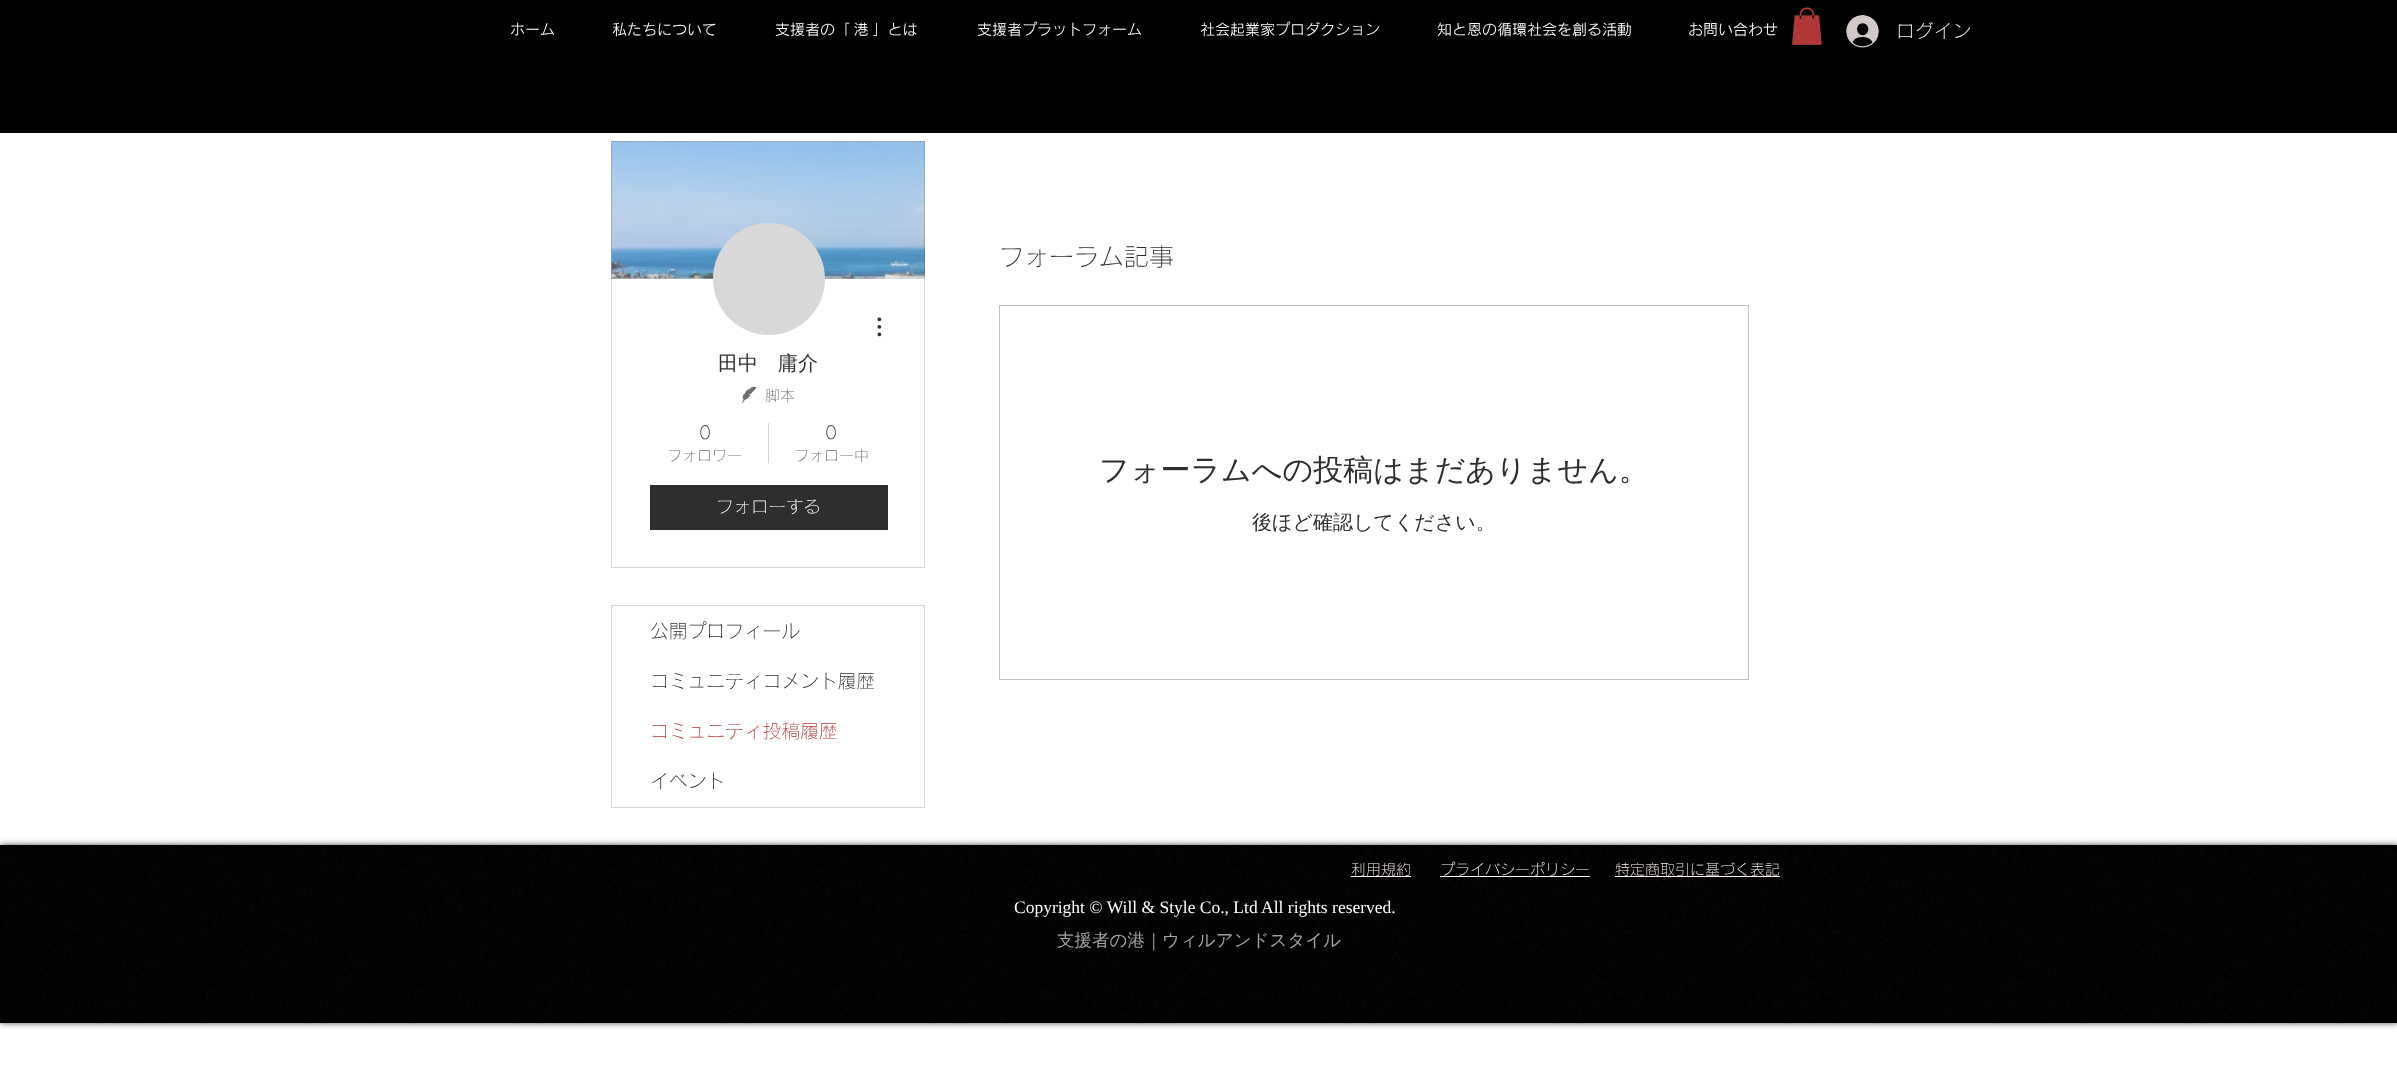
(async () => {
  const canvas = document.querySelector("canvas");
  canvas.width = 2397;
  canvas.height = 1076;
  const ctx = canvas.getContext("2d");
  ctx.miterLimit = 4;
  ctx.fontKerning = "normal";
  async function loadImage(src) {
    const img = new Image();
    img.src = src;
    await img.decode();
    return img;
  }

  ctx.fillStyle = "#ffffff";
  ctx.fillRect(0, 0, 2397, 1076);
  ctx.fillStyle = "#000000";
  ctx.fillRect(0, 0, 2397, 133);
  ctx.drawImage(await loadImage("img/1.png"), 1792, 7, 30, 38);
  ctx.drawImage(await loadImage("img/2.png"), 1846, 15, 33, 33);
  ctx.fillStyle = "#bdcfd9";
  ctx.fillRect(611, 141, 314, 138);
  ctx.drawImage(await loadImage("img/3.png"), 611, 141, 314, 138);
  ctx.strokeStyle = "rgba(47, 46, 46, 0.2)";
  ctx.strokeRect(611.5, 141.5, 313, 426);
  ctx.fillStyle = "#d8d8d8";
  ctx.beginPath();
  ctx.arc(769, 279, 56, 0, Math.PI * 2);
  ctx.fill();
  ctx.drawImage(await loadImage("img/4.png"), 877, 317, 5, 20);
  ctx.drawImage(await loadImage("img/5.png"), 742, 386, 15, 18);
  ctx.fillStyle = "#d5d5d5";
  ctx.fillRect(768, 423, 1, 40);
  ctx.fillStyle = "#2f2e2e";
  ctx.fillRect(650, 485, 238, 45);
  ctx.strokeStyle = "#d5d5d5";
  ctx.strokeRect(611.5, 605.5, 313, 202);
  ctx.strokeStyle = "#c1c0c0";
  ctx.strokeRect(999.5, 305.5, 749, 374);
  ctx.fillStyle = "rgba(0, 0, 0, 0.7)";
  ctx.filter = "blur(3px)";
  ctx.beginPath();
  ctx.rect(0, 845, 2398, 178);
  ctx.fill();
  ctx.filter = "none";
  ctx.fillStyle = "#000000";
  ctx.fillRect(0, 845, 2397, 178);
  ctx.drawImage(await loadImage("img/6.png"), 0, 845, 2397, 177);
  for (const [x, y, w, h, color] of [
    [1351, 876, 60, 1, "#fff5f0"],
    [1440, 876, 150, 1, "#fff5f0"],
    [1615, 876, 165, 1, "#fff5f0"],
  ]) {
    ctx.fillStyle = color;
    ctx.fillRect(x, y, w, h);
  }
  ctx.font = "500 15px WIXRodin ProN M";
  ctx.fillStyle = "#ffffff";
  for (const [text, x, y] of [
    ["ホーム", 510, 35],
    ["私たちについて", 612, 35],
    ["支援者の「 港 」とは", 775, 35],
    ["支援者プラットフォーム", 977, 35],
    ["社会起業家プロダクション", 1200, 35],
    ["知と恩の循環社会を創る活動", 1437, 35],
    ["お問い合わせ", 1688, 35],
  ]) {
    ctx.fillText(text, x, y);
  }
  ctx.font = "300 18.75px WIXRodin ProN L";
  ctx.fillText("ログイン", 1896, 38);
  ctx.font = "500 20px WenQuanYi Zen Hei";
  ctx.fillStyle = "#2f2e2e";
  ctx.fillText("田中　庸介", 718, 370);
  ctx.font = "300 15px WIXRodin ProN L";
  ctx.fillStyle = "#6d6d6d";
  ctx.fillText("脚本", 765, 401);
  ctx.font = "300 17.5px WIXRodin ProN L";
  ctx.fillStyle = "#2f2e2e";
  ctx.fillText("0", 699, 439);
  ctx.font = "300 15px WIXRodin ProN L";
  ctx.fillStyle = "#6d6d6d";
  ctx.fillText("フォロワー", 667, 461);
  ctx.font = "300 17.5px WIXRodin ProN L";
  ctx.fillStyle = "#2f2e2e";
  ctx.fillText("0", 825, 439);
  ctx.font = "300 15px WIXRodin ProN L";
  ctx.fillStyle = "#6d6d6d";
  ctx.fillText("フォロー中", 794, 461);
  ctx.font = "300 17.5px WIXRodin ProN L";
  ctx.fillStyle = "#ffffff";
  ctx.fillText("フォローする", 716, 513);
  ctx.font = "300 18.75px WIXRodin ProN L";
  ctx.fillStyle = "#2f2e2e";
  ctx.fillText("公開プロフィール", 650, 638);
  ctx.fillText("コミュニティコメント履歴", 650, 688);
  ctx.fillStyle = "#b03737";
  ctx.fillText("コミュニティ投稿履歴", 650, 738);
  ctx.fillStyle = "#2f2e2e";
  ctx.fillText("イベント", 650, 788);
  ctx.font = "300 25px WIXRodin ProN L";
  ctx.fillText("フォーラム記事", 999, 266);
  ctx.font = "500 30px WenQuanYi Zen Hei";
  ctx.fillText("フォーラムへの投稿はまだありません。", 1099, 480);
  ctx.font = "500 20px WenQuanYi Zen Hei";
  ctx.fillText("後ほど確認してください。", 1252, 529);
  ctx.font = "300 15px WIXRodin ProN L";
  ctx.fillStyle = "#fff5f0";
  for (const [text, x, y] of [
    ["利用規約", 1351, 875],
    ["プライバシーポリシー", 1440, 875],
    ["特定商取引に基づく表記", 1615, 875],
  ]) {
    ctx.fillText(text, x, y);
  }
  ctx.font = "17.5px Liberation Serif";
  ctx.fillStyle = "#ffffff";
  ctx.fillText("Copyright © Will & Style Co., Ltd All rights reserved.", 1014, 913);
  ctx.font = "500 17.5px WenQuanYi Zen Hei";
  ctx.fillStyle = "#a3a3a3";
  ctx.fillText("支援者の港｜ウィルアンドスタイル", 1057, 946);
})();
